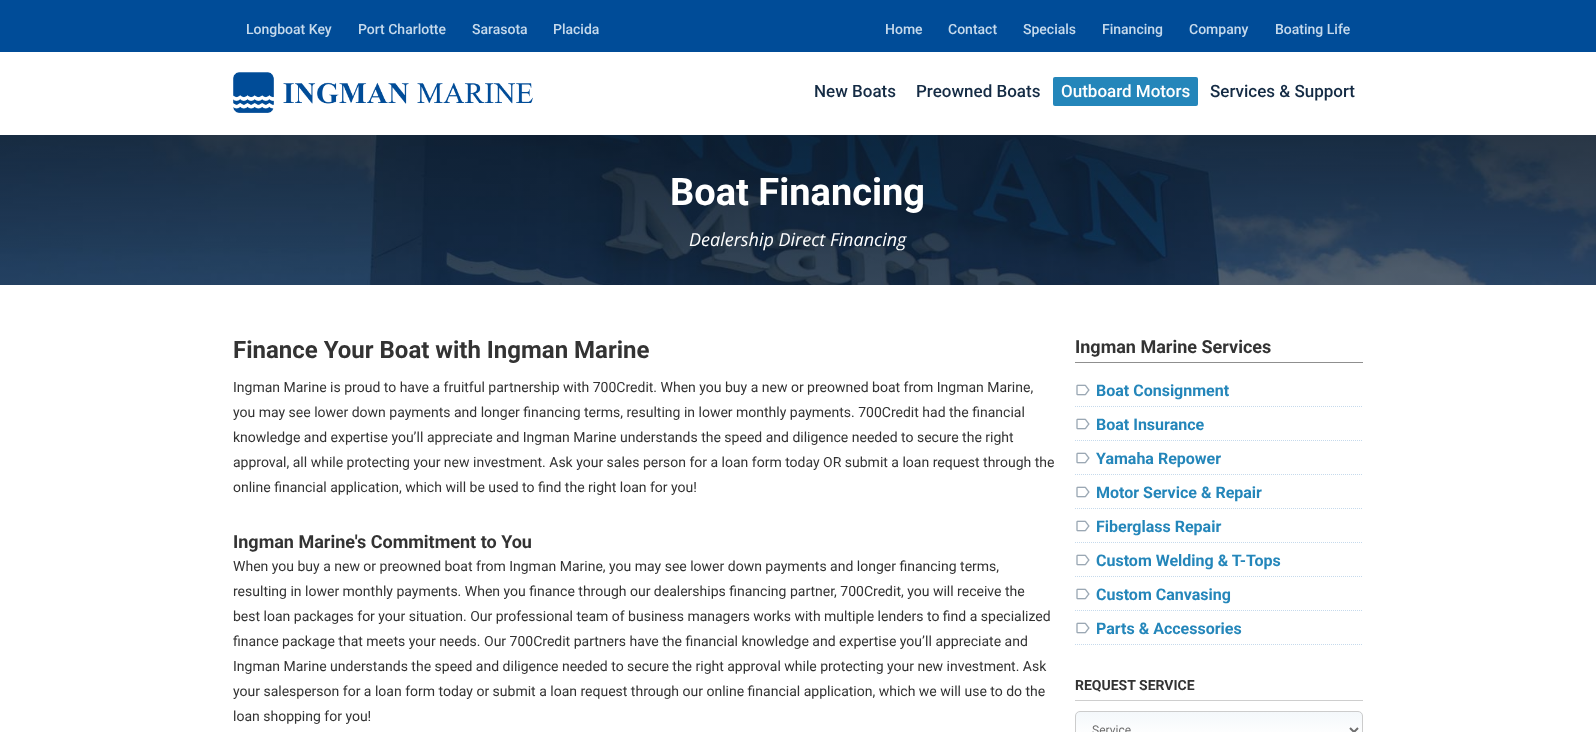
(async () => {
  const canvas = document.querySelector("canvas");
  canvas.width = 1596;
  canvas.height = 732;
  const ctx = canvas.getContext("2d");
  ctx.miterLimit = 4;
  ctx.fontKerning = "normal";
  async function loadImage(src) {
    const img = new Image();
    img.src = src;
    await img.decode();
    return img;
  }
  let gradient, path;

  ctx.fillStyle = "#ffffff";
  ctx.fillRect(0, 0, 1596, 732);
  ctx.fillStyle = "#004c98";
  ctx.fillRect(0, 0, 1596, 52);
  ctx.drawImage(await loadImage("img/1.png"), 233, 72, 300, 41);
  ctx.fillStyle = "#2486ba";
  ctx.beginPath();
  ctx.roundRect(1053, 77, 145, 29, 2);
  ctx.fill();
  ctx.drawImage(await loadImage("img/2.png"), 0, 135, 1596, 150);
  ctx.fillStyle = "#8f8f8f";
  ctx.fillRect(1075, 362, 288, 1);
  path = new Path2D("M1075 406.5H1363");
  ctx.strokeStyle = "#c6daec";
  ctx.setLineDash([1, 1]);
  ctx.stroke(path);
  ctx.drawImage(await loadImage("img/3.png"), 1076, 384, 14, 12);
  path = new Path2D("M1075 440.5H1363");
  ctx.stroke(path);
  ctx.drawImage(await loadImage("img/3.png"), 1076, 418, 14, 12);
  path = new Path2D("M1075 474.5H1363");
  ctx.stroke(path);
  ctx.drawImage(await loadImage("img/3.png"), 1076, 452, 14, 12);
  path = new Path2D("M1075 508.5H1363");
  ctx.stroke(path);
  ctx.drawImage(await loadImage("img/3.png"), 1076, 486, 14, 12);
  path = new Path2D("M1075 542.5H1363");
  ctx.stroke(path);
  ctx.drawImage(await loadImage("img/3.png"), 1076, 520, 14, 12);
  path = new Path2D("M1075 576.5H1363");
  ctx.stroke(path);
  ctx.drawImage(await loadImage("img/3.png"), 1076, 554, 14, 12);
  path = new Path2D("M1075 610.5H1363");
  ctx.stroke(path);
  ctx.drawImage(await loadImage("img/3.png"), 1076, 588, 14, 12);
  path = new Path2D("M1075 644.5H1363");
  ctx.stroke(path);
  ctx.drawImage(await loadImage("img/3.png"), 1076, 622, 14, 12);
  ctx.fillStyle = "#cecece";
  ctx.fillRect(1075, 700, 288, 1);
  ctx.save();
  ctx.beginPath();
  ctx.roundRect(1075, 711, 288, 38, 5);
  ctx.clip();
  gradient = ctx.createLinearGradient(1219, 712, 1219, 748);
  gradient.addColorStop(0, "#f4f8fb");
  gradient.addColorStop(0.7, "#ffffff");
  ctx.fillStyle = gradient;
  ctx.fillRect(1075, 712, 288, 20);
  ctx.restore();
  ctx.beginPath();
  ctx.roundRect(1075.5, 711.5, 287, 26, 4.5);
  ctx.strokeStyle = "#cccccc";
  ctx.setLineDash([]);
  ctx.stroke();
  path = new Path2D("M1350 728L1354 732L1358 728");
  ctx.strokeStyle = "#6e6e6e";
  ctx.lineWidth = 2;
  ctx.stroke(path);
  ctx.font = "500 14px Roboto";
  ctx.fillStyle = "#c6daec";
  for (const [text, x, y] of [
    ["Longboat Key", 246, 34],
    ["Port Charlotte", 358, 34],
    ["Sarasota", 472, 34],
    ["Placida", 553, 34],
    ["Home", 885, 34],
    ["Contact", 948, 34],
    ["Specials", 1023, 34],
    ["Financing", 1102, 34],
    ["Company", 1189, 34],
    ["Boating Life", 1275, 34],
  ]) {
    ctx.fillText(text, x, y);
  }
  ctx.font = "500 17px Roboto";
  ctx.fillStyle = "#142b44";
  ctx.fillText("New Boats", 814, 97);
  ctx.fillText("Preowned Boats", 916, 97);
  ctx.fillStyle = "#ffffff";
  ctx.fillText("Outboard Motors", 1061, 97);
  ctx.fillStyle = "#142b44";
  ctx.fillText("Services & Support", 1210, 97);
  ctx.font = "bold 38px Roboto";
  ctx.fillStyle = "#ffffff";
  ctx.fillText("Boat Financing", 670, 205);
  ctx.font = "italic 18px Open Sans";
  ctx.fillText("Dealership Direct Financing", 689, 246);
  ctx.font = "bold 24px Roboto";
  ctx.fillStyle = "#333333";
  ctx.fillText("Finance Your Boat with Ingman Marine", 233, 358);
  ctx.font = "14px Roboto";
  for (const [text, x, y] of [
    ["Ingman Marine is proud to have a fruitful partnership with 700Credit. When you buy a new or preowned boat from Ingman Marine,", 233, 392],
    ["you may see lower down payments and longer financing terms, resulting in lower monthly payments. 700Credit had the financial", 233, 417],
    ["knowledge and expertise you’ll appreciate and Ingman Marine understands the speed and diligence needed to secure the right", 233, 442],
    ["approval, all while protecting your new investment. Ask your sales person for a loan form today OR submit a loan request through the", 233, 467],
    ["online financial application, which will be used to find the right loan for you!", 233, 492],
  ]) {
    ctx.fillText(text, x, y);
  }
  ctx.font = "bold 18px Roboto";
  ctx.fillText("Ingman Marine's Commitment to You", 233, 548);
  ctx.font = "14px Roboto";
  for (const [text, x, y] of [
    ["When you buy a new or preowned boat from Ingman Marine, you may see lower down payments and longer financing terms,", 233, 571],
    ["resulting in lower monthly payments. When you finance through our dealerships financing partner, 700Credit, you will receive the", 233, 596],
    ["best loan packages for your situation. Our professional team of business managers works with multiple lenders to find a specialized", 233, 621],
    ["finance package that meets your needs. Our 700Credit partners have the financial knowledge and expertise you’ll appreciate and", 233, 646],
    ["Ingman Marine understands the speed and diligence needed to secure the right approval while protecting your new investment. Ask", 233, 671],
    ["your salesperson for a loan form today or submit a loan request through our online financial application, which we will use to do the", 233, 696],
    ["loan shopping for you!", 233, 721],
  ]) {
    ctx.fillText(text, x, y);
  }
  ctx.font = "bold 18px Roboto";
  ctx.fillText("Ingman Marine Services", 1075, 353);
  ctx.font = "bold 16px Roboto";
  ctx.fillStyle = "#2486ba";
  for (const [text, x, y] of [
    ["Boat Consignment", 1096, 396],
    ["Boat Insurance", 1096, 430],
    ["Yamaha Repower", 1096, 464],
    ["Motor Service & Repair", 1096, 498],
    ["Fiberglass Repair", 1096, 532],
    ["Custom Welding & T-Tops", 1096, 566],
    ["Custom Canvasing", 1096, 600],
    ["Parts & Accessories", 1096, 634],
  ]) {
    ctx.fillText(text, x, y);
  }
  ctx.font = "bold 14px Roboto";
  ctx.fillStyle = "#333333";
  ctx.fillText("REQUEST SERVICE", 1075, 690);
  ctx.font = "12px Roboto";
  ctx.fillStyle = "#6e6e6e";
  ctx.fillText("Service", 1092, 734);
})();
